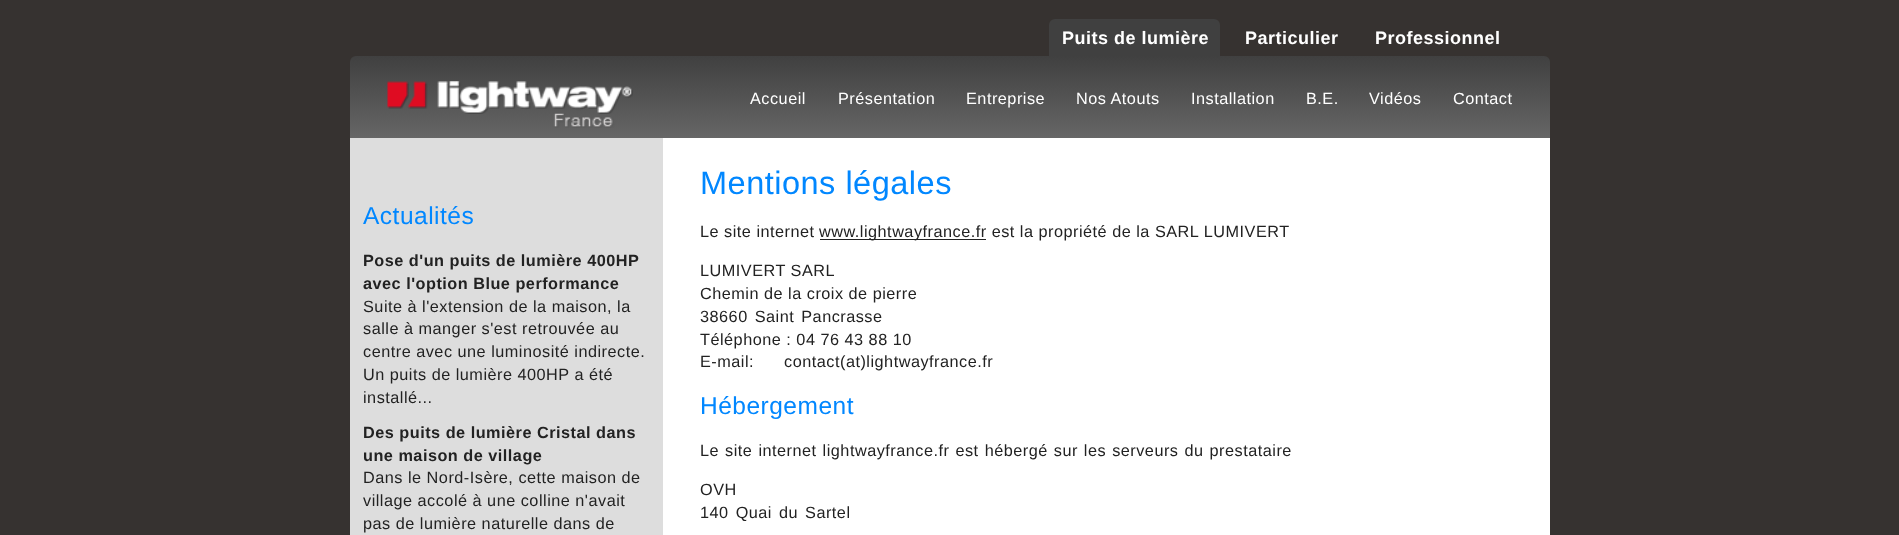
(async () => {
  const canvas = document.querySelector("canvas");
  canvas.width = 1899;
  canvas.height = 535;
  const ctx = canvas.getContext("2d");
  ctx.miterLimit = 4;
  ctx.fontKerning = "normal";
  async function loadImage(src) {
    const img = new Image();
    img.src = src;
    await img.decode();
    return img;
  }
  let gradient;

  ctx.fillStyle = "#363230";
  ctx.fillRect(0, 0, 1899, 535);
  gradient = ctx.createLinearGradient(950, 56, 950, 138);
  gradient.addColorStop(0, "#404040");
  gradient.addColorStop(1, "#666666");
  ctx.fillStyle = gradient;
  ctx.beginPath();
  ctx.roundRect(350, 56, 1200, 82, [6, 6, 0, 0]);
  ctx.fill();
  ctx.drawImage(await loadImage("img/1.png"), 387, 81, 246, 47);
  ctx.fillStyle = "#404040";
  ctx.beginPath();
  ctx.roundRect(1049, 19, 171, 37, [6, 6, 0, 0]);
  ctx.fill();
  for (const [x, y, w, h, color] of [
    [663, 138, 887, 397, "#ffffff"],
    [350, 138, 313, 397, "#dddddd"],
    [820, 239, 166, 1, "#222222"],
  ]) {
    ctx.fillStyle = color;
    ctx.fillRect(x, y, w, h);
  }
  ctx.letterSpacing = "0.5px";
  ctx.font = "bold 18px Liberation Sans";
  ctx.fillStyle = "#ffffff";
  for (const [text, x, y] of [
    ["Puits de lumière", 1062, 44],
    ["Particulier", 1245, 44],
    ["Professionnel", 1375, 44],
  ]) {
    ctx.fillText(text, x, y);
  }
  ctx.font = "16.25px Liberation Sans";
  for (const [text, x, y] of [
    ["Accueil", 750, 104],
    ["Présentation", 838, 104],
    ["Entreprise", 966, 104],
    ["Nos Atouts", 1076, 104],
    ["Installation", 1191, 104],
    ["B.E.", 1306, 104],
    ["Vidéos", 1369, 104],
    ["Contact", 1453, 104],
  ]) {
    ctx.fillText(text, x, y);
  }
  ctx.font = "24.5px Liberation Sans";
  ctx.fillStyle = "#0187ff";
  ctx.fillText("Actualités", 363, 224);
  ctx.font = "bold 16.25px Liberation Sans";
  ctx.fillStyle = "#222222";
  ctx.fillText("Pose d'un puits de lumière 400HP", 363, 266);
  ctx.fillText("avec l'option Blue performance", 363, 289);
  ctx.font = "16.25px Liberation Sans";
  for (const [text, x, y] of [
    ["Suite à l'extension de la maison, la", 363, 312],
    ["salle à manger s'est retrouvée au", 363, 334],
    ["centre avec une luminosité indirecte.", 363, 357],
    ["Un puits de lumière 400HP a été", 363, 380],
    ["installé...", 363, 403],
  ]) {
    ctx.fillText(text, x, y);
  }
  ctx.font = "bold 16.25px Liberation Sans";
  ctx.fillText("Des puits de lumière Cristal dans", 363, 438);
  ctx.fillText("une maison de village", 363, 461);
  ctx.font = "16.25px Liberation Sans";
  for (const [text, x, y] of [
    ["Dans le Nord-Isère, cette maison de", 363, 483],
    ["village accolé à une colline n'avait", 363, 506],
    ["pas de lumière naturelle dans de", 363, 529],
  ]) {
    ctx.fillText(text, x, y);
  }
  ctx.font = "32.5px Liberation Sans";
  ctx.fillStyle = "#0187ff";
  ctx.fillText("Mentions légales", 700, 194);
  ctx.font = "16.25px Liberation Sans";
  ctx.fillStyle = "#222222";
  for (const [text, x, y] of [
    ["Le site internet", 700, 237],
    ["www.lightwayfrance.fr est la propriété de la SARL LUMIVERT", 819, 237],
    ["LUMIVERT SARL", 700, 276],
    ["Chemin de la croix de pierre", 700, 299],
  ]) {
    ctx.fillText(text, x, y);
  }
  ctx.wordSpacing = "2px";
  ctx.fillText("38660 Saint Pancrasse", 700, 322);
  ctx.wordSpacing = "0px";
  ctx.fillText("Téléphone : 04 76 43 88 10", 700, 345);
  ctx.wordSpacing = "25px";
  ctx.fillText("E-mail: contact(at)lightwayfrance.fr", 700, 367);
  ctx.wordSpacing = "0px";
  ctx.font = "24.5px Liberation Sans";
  ctx.fillStyle = "#0187ff";
  ctx.fillText("Hébergement", 700, 414);
  ctx.wordSpacing = "1px";
  ctx.font = "16.25px Liberation Sans";
  ctx.fillStyle = "#222222";
  ctx.fillText("Le site internet lightwayfrance.fr est hébergé sur les serveurs du prestataire", 700, 456);
  ctx.wordSpacing = "0px";
  ctx.fillText("OVH", 700, 495);
  ctx.wordSpacing = "2px";
  ctx.fillText("140 Quai du Sartel", 700, 518);
})();
